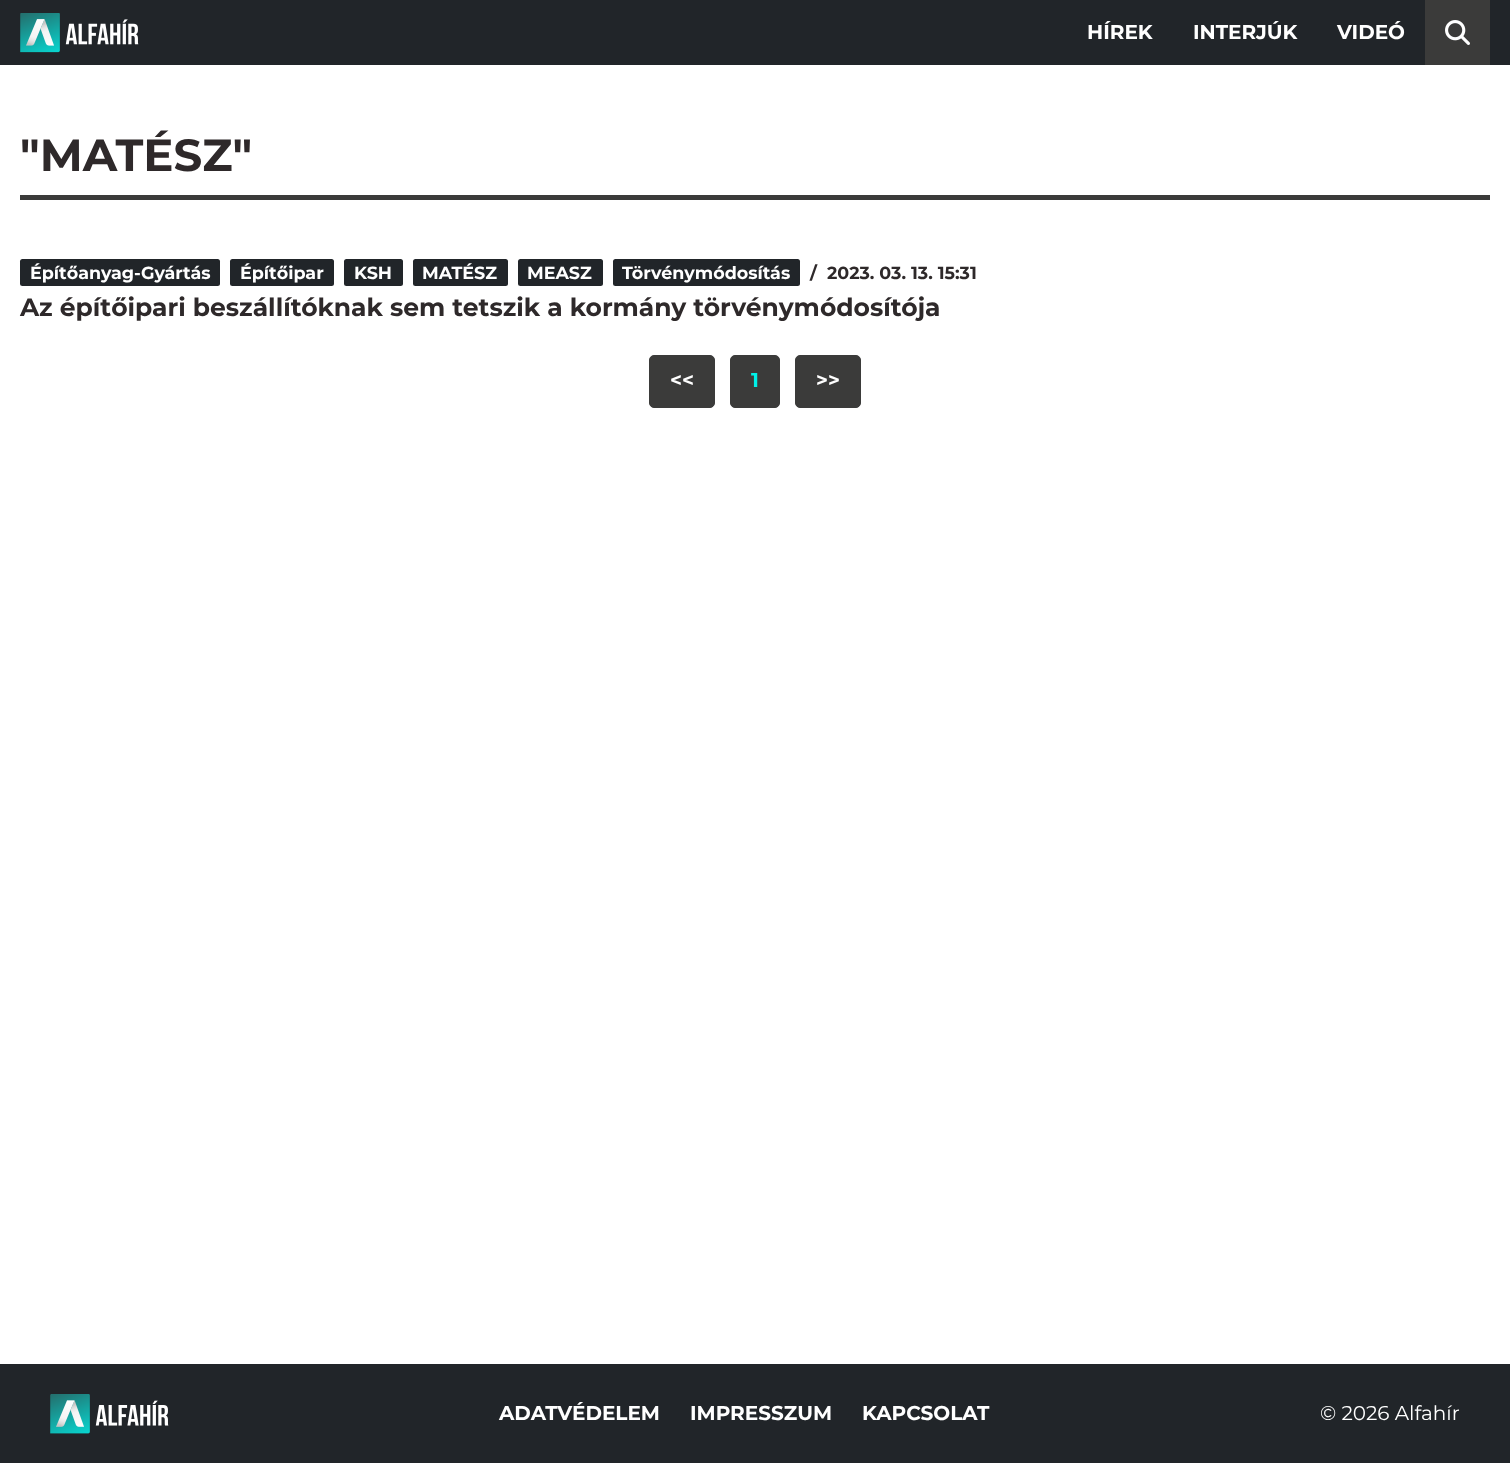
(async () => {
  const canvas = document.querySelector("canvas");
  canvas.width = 1510;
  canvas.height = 1463;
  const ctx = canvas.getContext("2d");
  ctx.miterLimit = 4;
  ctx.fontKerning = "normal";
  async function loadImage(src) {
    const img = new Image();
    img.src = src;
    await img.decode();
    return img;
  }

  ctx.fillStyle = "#ffffff";
  ctx.fillRect(0, 0, 1510, 1463);
  ctx.fillStyle = "#212529";
  ctx.fillRect(0, 0, 1510, 65);
  ctx.drawImage(await loadImage("img/1.png"), 20, 13, 119, 40);
  ctx.fillStyle = "#3b3b3a";
  ctx.fillRect(1425, 0, 65, 65);
  ctx.drawImage(await loadImage("img/2.png"), 1445, 20, 25, 25);
  ctx.fillRect(20, 195, 1470, 5);
  ctx.fillStyle = "#212529";
  ctx.beginPath();
  ctx.roundRect(20, 259, 200, 27, 2.5);
  ctx.fill();
  ctx.beginPath();
  ctx.roundRect(230, 259, 104, 27, 2.5);
  ctx.fill();
  ctx.beginPath();
  ctx.roundRect(344, 259, 59, 27, 2.5);
  ctx.fill();
  ctx.beginPath();
  ctx.roundRect(413, 259, 95, 27, 2.5);
  ctx.fill();
  ctx.beginPath();
  ctx.roundRect(518, 259, 85, 27, 2.5);
  ctx.fill();
  ctx.beginPath();
  ctx.roundRect(613, 259, 187, 27, 2.5);
  ctx.fill();
  ctx.fillStyle = "#3b3b3a";
  ctx.beginPath();
  ctx.roundRect(649.5, 355.5, 65, 52, 4.5);
  ctx.fill();
  ctx.strokeStyle = "#3b3b3a";
  ctx.stroke();
  ctx.beginPath();
  ctx.roundRect(730.5, 355.5, 49, 52, 4.5);
  ctx.fill();
  ctx.stroke();
  ctx.beginPath();
  ctx.roundRect(795.5, 355.5, 65, 52, 4.5);
  ctx.fill();
  ctx.stroke();
  ctx.fillStyle = "#212529";
  ctx.fillRect(0, 1364, 1510, 99);
  ctx.drawImage(await loadImage("img/3.png"), 50, 1394, 119, 40);
  ctx.font = "bold 20px Montserrat";
  ctx.fillStyle = "#ffffff";
  for (const [text, x, y] of [
    ["HÍREK", 1087, 39],
    ["INTERJÚK", 1193, 39],
    ["VIDEÓ", 1337, 39],
  ]) {
    ctx.fillText(text, x, y);
  }
  ctx.font = "bold 45px Montserrat";
  ctx.fillStyle = "#2e292a";
  ctx.fillText("\"MATÉSZ\"", 20, 171);
  ctx.font = "bold 17.5px Montserrat";
  ctx.fillStyle = "#ffffff";
  for (const [text, x, y] of [
    ["Építőanyag-Gyártás", 30, 279],
    ["Építőipar", 240, 279],
    ["KSH", 354, 279],
    ["MATÉSZ", 422, 279],
    ["MEASZ", 527, 279],
    ["Törvénymódosítás", 622, 279],
  ]) {
    ctx.fillText(text, x, y);
  }
  ctx.fillStyle = "#2e292a";
  ctx.fillText("/", 810, 279);
  ctx.fillText("2023. 03. 13. 15:31", 827, 279);
  ctx.font = "bold 25px Montserrat";
  ctx.fillText("Az építőipari beszállítóknak sem tetszik a kormány törvénymódosítója", 20, 316);
  ctx.font = "bold 20px Montserrat";
  ctx.fillStyle = "#ffffff";
  ctx.fillText("<<", 670, 387);
  ctx.fillStyle = "#00f0e8";
  ctx.fillText("1", 751, 387);
  ctx.fillStyle = "#ffffff";
  for (const [text, x, y] of [
    [">>", 816, 387],
    ["ADATVÉDELEM", 499, 1420],
    ["IMPRESSZUM", 690, 1420],
    ["KAPCSOLAT", 862, 1420],
  ]) {
    ctx.fillText(text, x, y);
  }
  ctx.font = "20px Montserrat";
  ctx.fillText("© 2026 Alfahír", 1320, 1420);
})();
